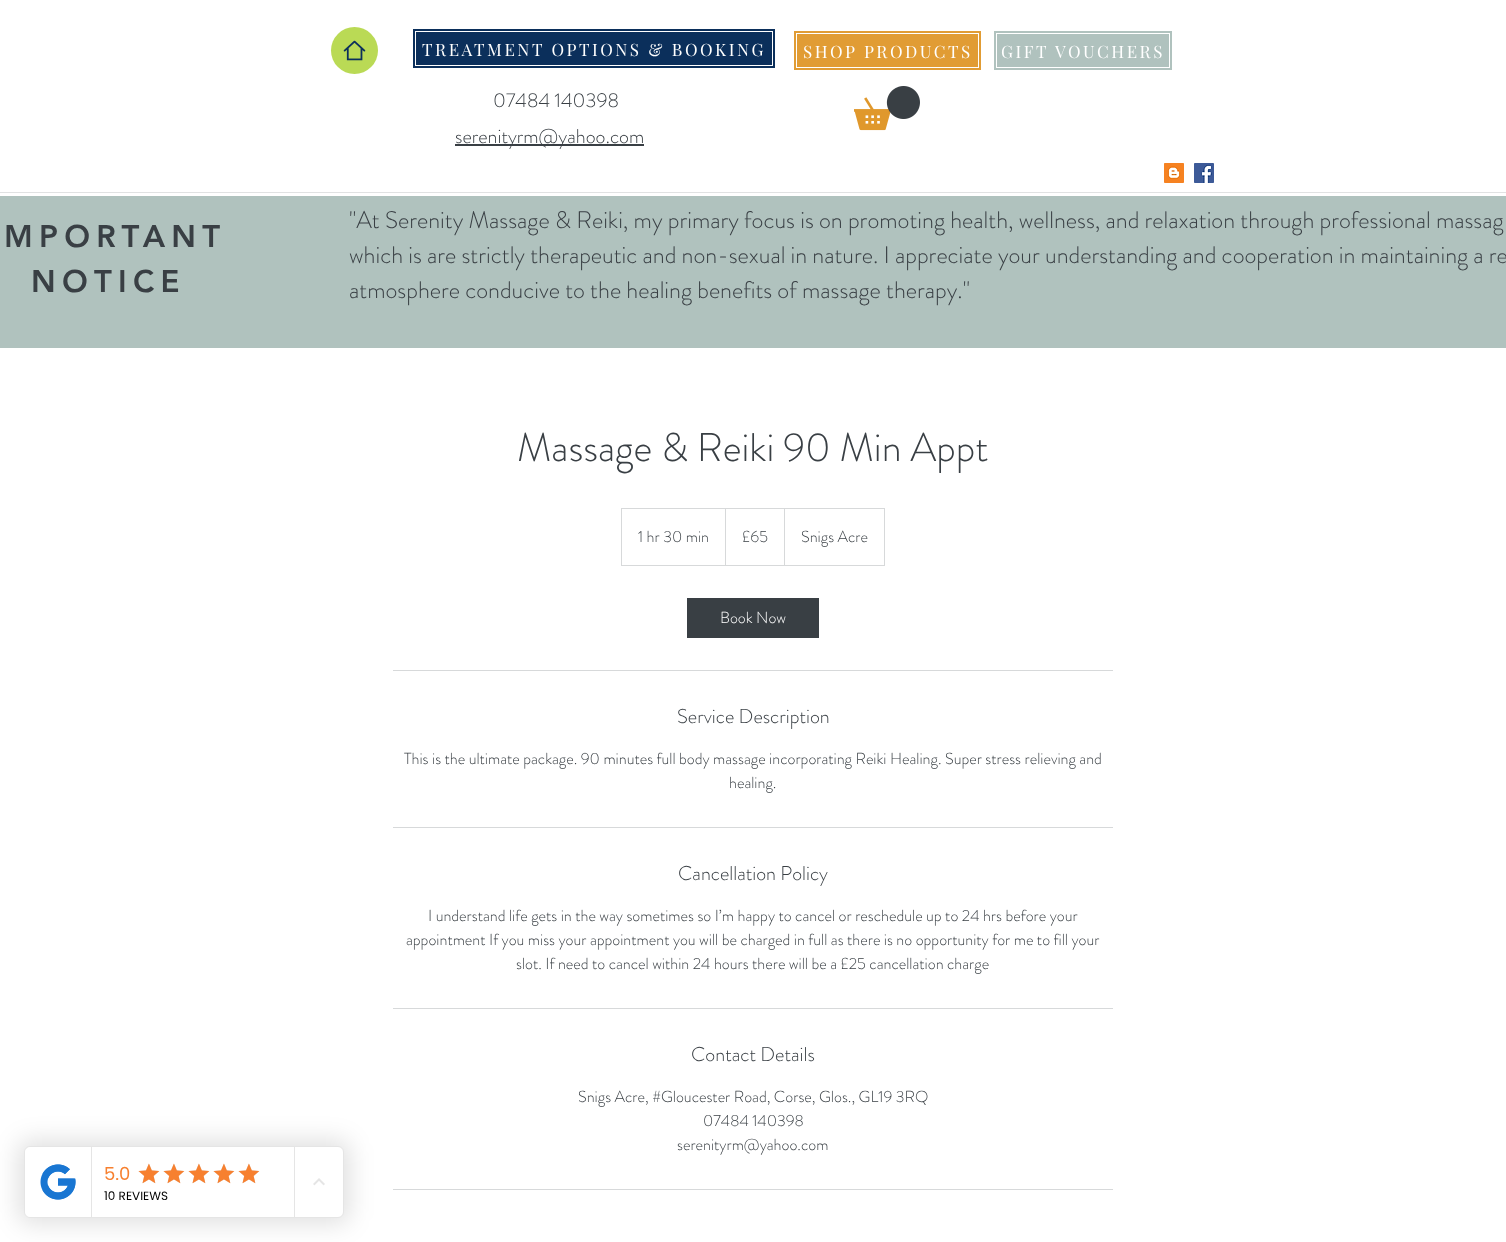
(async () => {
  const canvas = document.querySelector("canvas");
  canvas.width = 1506;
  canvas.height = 1242;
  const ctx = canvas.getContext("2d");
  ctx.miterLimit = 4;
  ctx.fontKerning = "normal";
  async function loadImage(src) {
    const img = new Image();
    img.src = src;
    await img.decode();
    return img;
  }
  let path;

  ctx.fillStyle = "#ffffff";
  ctx.fillRect(0, 0, 1506, 1242);
  ctx.fillStyle = "#bada55";
  ctx.beginPath();
  ctx.arc(354.5, 50.5, 23.5, 0, Math.PI * 2);
  ctx.fill();
  ctx.drawImage(await loadImage("img/1.png"), 343, 40, 23, 21);
  ctx.fillStyle = "#0b2f5b";
  ctx.fillRect(413, 29, 362, 39);
  ctx.strokeStyle = "#ffffff";
  ctx.strokeRect(415.5, 31.5, 357, 34);
  ctx.fillStyle = "#e19c34";
  ctx.fillRect(794, 31, 187, 39);
  ctx.strokeRect(796.5, 33.5, 182, 34);
  ctx.fillStyle = "#b0c2be";
  ctx.fillRect(994, 31, 178, 39);
  ctx.strokeRect(996.5, 33.5, 173, 34);
  ctx.drawImage(await loadImage("img/2.png"), 854, 86, 66, 45);
  ctx.fillStyle = "#393f44";
  ctx.fillRect(455, 144, 189, 2);
  ctx.drawImage(await loadImage("img/3.png"), 1164, 163, 20, 20);
  ctx.drawImage(await loadImage("img/4.png"), 1194, 163, 20, 20);
  ctx.fillStyle = "#e1e2e3";
  ctx.fillRect(0, 192, 1506, 1);
  ctx.fillStyle = "#b0c2be";
  ctx.fillRect(0, 196, 1506, 152);
  ctx.strokeStyle = "#d7d9da";
  ctx.strokeRect(621.5, 508.5, 263, 57);
  ctx.fillStyle = "#d7d9da";
  path = new Path2D("M725 565V508L726 509V565Z");
  ctx.fill(path);
  path = new Path2D("M784 565V508L785 509V565Z");
  ctx.fill(path);
  for (const [x, y, w, h, color] of [
    [687, 598, 132, 40, "#393f44"],
    [393, 670, 720, 1, "#d7d9da"],
    [393, 827, 720, 1, "#d7d9da"],
    [393, 1008, 720, 1, "#d7d9da"],
    [393, 1189, 720, 1, "#d7d9da"],
  ]) {
    ctx.fillStyle = color;
    ctx.fillRect(x, y, w, h);
  }
  ctx.fillStyle = "rgba(0, 0, 0, 0.12)";
  ctx.filter = "blur(12px)";
  ctx.beginPath();
  ctx.roundRect(18, 1140, 332, 84, 12);
  ctx.fill();
  ctx.filter = "none";
  ctx.fillStyle = "#ffffff";
  ctx.beginPath();
  ctx.roundRect(24.5, 1146.5, 319, 71, 5.5);
  ctx.fill();
  ctx.strokeStyle = "#e5e5e5";
  ctx.stroke();
  ctx.beginPath();
  ctx.roundRect(25, 1147, 67, 70, [6, 0, 0, 6]);
  ctx.fill();
  ctx.fillStyle = "#e5e5e5";
  ctx.fillRect(91, 1147, 1, 70);
  ctx.drawImage(await loadImage("img/5.png"), 40, 1164, 36, 36);
  ctx.fillRect(294, 1147, 1, 70);
  ctx.drawImage(await loadImage("img/7.png"), 138, 1164, 21, 19);
  ctx.drawImage(await loadImage("img/6.png"), 138, 1163, 22, 21);
  ctx.drawImage(await loadImage("img/7.png"), 163, 1164, 21, 19);
  ctx.drawImage(await loadImage("img/6.png"), 163, 1163, 22, 21);
  ctx.drawImage(await loadImage("img/7.png"), 188, 1164, 21, 19);
  ctx.drawImage(await loadImage("img/6.png"), 188, 1163, 22, 21);
  ctx.drawImage(await loadImage("img/7.png"), 213, 1164, 21, 19);
  ctx.drawImage(await loadImage("img/6.png"), 213, 1163, 22, 21);
  ctx.drawImage(await loadImage("img/7.png"), 238, 1164, 21, 19);
  ctx.drawImage(await loadImage("img/6.png"), 238, 1163, 22, 21);
  ctx.drawImage(await loadImage("img/8.png"), 313, 1178, 12, 8);
  ctx.letterSpacing = "2.55px";
  ctx.font = "17px Playfair Display";
  ctx.fillStyle = "#ffffff";
  for (const [text, x, y] of [
    ["TREATMENT OPTIONS & BOOKING", 422, 56],
    ["SHOP PRODUCTS", 803, 58],
    ["GIFT VOUCHERS", 1001, 58],
  ]) {
    ctx.fillText(text, x, y);
  }
  ctx.letterSpacing = "0px";
  ctx.font = "300 20px 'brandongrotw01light'";
  ctx.fillStyle = "#393f44";
  ctx.fillText("07484 140398", 493, 107);
  ctx.fillText("serenityrm@yahoo.com", 455, 143);
  ctx.letterSpacing = "6.25px";
  ctx.font = "900 31px 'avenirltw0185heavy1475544'";
  ctx.fillText("MPORTANT", 4, 247);
  ctx.fillText("NOTICE", 31, 292);
  ctx.letterSpacing = "0px";
  ctx.font = "300 24px 'brandongrotw01light'";
  for (const [text, x, y] of [
    ["\"At Serenity Massage & Reiki, my primary focus is on promoting health, wellness, and relaxation through professional massag", 349, 228],
    ["which is are strictly therapeutic and non-sexual in nature. I appreciate your understanding and cooperation in maintaining a re", 349, 263],
    ["atmosphere conducive to the healing benefits of massage therapy.\"", 349, 298],
  ]) {
    ctx.fillText(text, x, y);
  }
  ctx.font = "300 40px 'brandongrotw01light'";
  ctx.fillText("Massage & Reiki 90 Min Appt", 517, 461);
  ctx.font = "300 16px 'brandongrotw01light'";
  for (const [text, x, y] of [
    ["1 hr 30 min", 638, 542],
    ["£65", 742, 542],
    ["Snigs Acre", 801, 542],
  ]) {
    ctx.fillText(text, x, y);
  }
  ctx.fillStyle = "#ffffff";
  ctx.fillText("Book Now", 720, 623);
  ctx.font = "300 20px 'brandongrotw01light'";
  ctx.fillStyle = "#393f44";
  ctx.fillText("Service Description", 677, 723);
  ctx.font = "300 16px 'brandongrotw01light'";
  ctx.fillText("This is the ultimate package. 90 minutes full body massage incorporating Reiki Healing. Super stress relieving and", 404, 764);
  ctx.fillText("healing.", 729, 788);
  ctx.font = "300 20px 'brandongrotw01light'";
  ctx.fillText("Cancellation Policy", 678, 880);
  ctx.font = "300 16px 'brandongrotw01light'";
  for (const [text, x, y] of [
    ["I understand life gets in the way sometimes so I’m happy to cancel or reschedule up to 24 hrs before your", 428, 921],
    ["appointment If you miss your appointment you will be charged in full as there is no opportunity for me to fill your", 406, 945],
    ["slot. If need to cancel within 24 hours there will be a £25 cancellation charge", 516, 969],
  ]) {
    ctx.fillText(text, x, y);
  }
  ctx.font = "300 20px 'brandongrotw01light'";
  ctx.fillText("Contact Details", 691, 1061);
  ctx.font = "300 16px 'brandongrotw01light'";
  for (const [text, x, y] of [
    ["Snigs Acre, #Gloucester Road, Corse, Glos., GL19 3RQ", 578, 1102],
    ["07484 140398", 703, 1126],
    ["serenityrm@yahoo.com", 677, 1150],
  ]) {
    ctx.fillText(text, x, y);
  }
  ctx.font = "18px Poppins";
  ctx.fillStyle = "#f7802f";
  ctx.fillText("5.0", 104, 1180);
  ctx.font = "12px Poppins";
  ctx.fillStyle = "#000000";
  ctx.fillText("10 REVIEWS", 104, 1200);
})();
